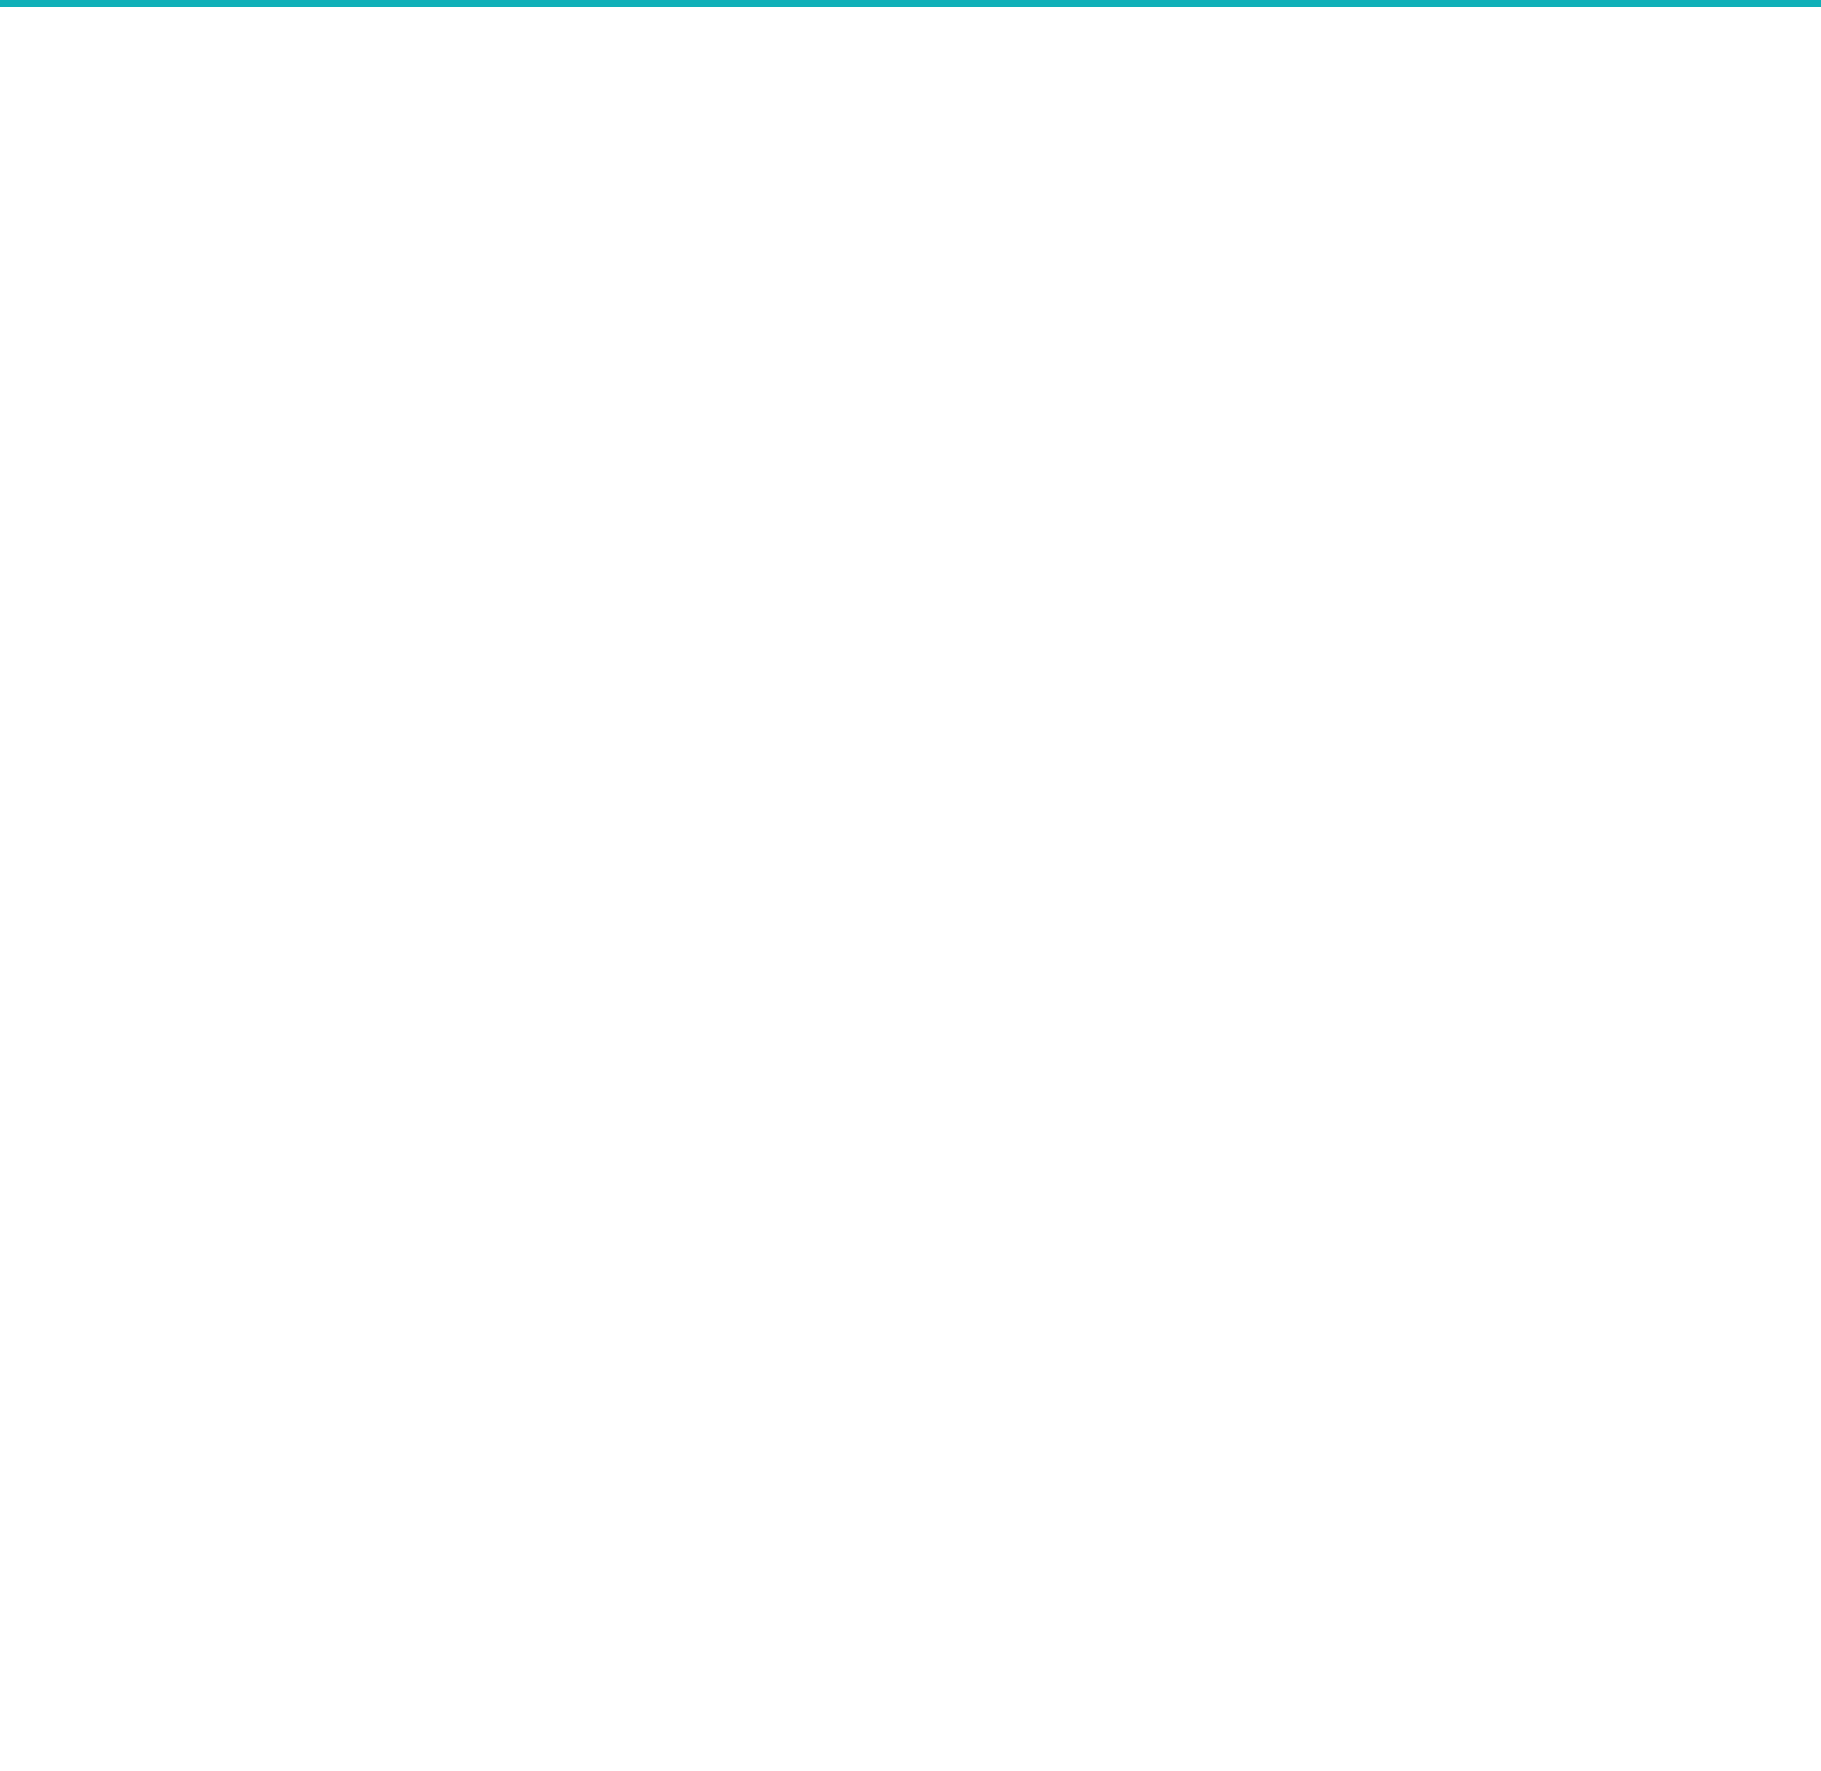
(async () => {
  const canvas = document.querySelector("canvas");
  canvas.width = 1821;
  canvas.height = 1771;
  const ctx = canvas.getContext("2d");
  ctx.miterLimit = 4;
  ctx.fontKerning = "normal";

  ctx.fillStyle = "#ffffff";
  ctx.fillRect(0, 0, 1821, 1771);
  ctx.fillStyle = "#10b0b8";
  ctx.fillRect(0, 0, 1821, 7);
})();
